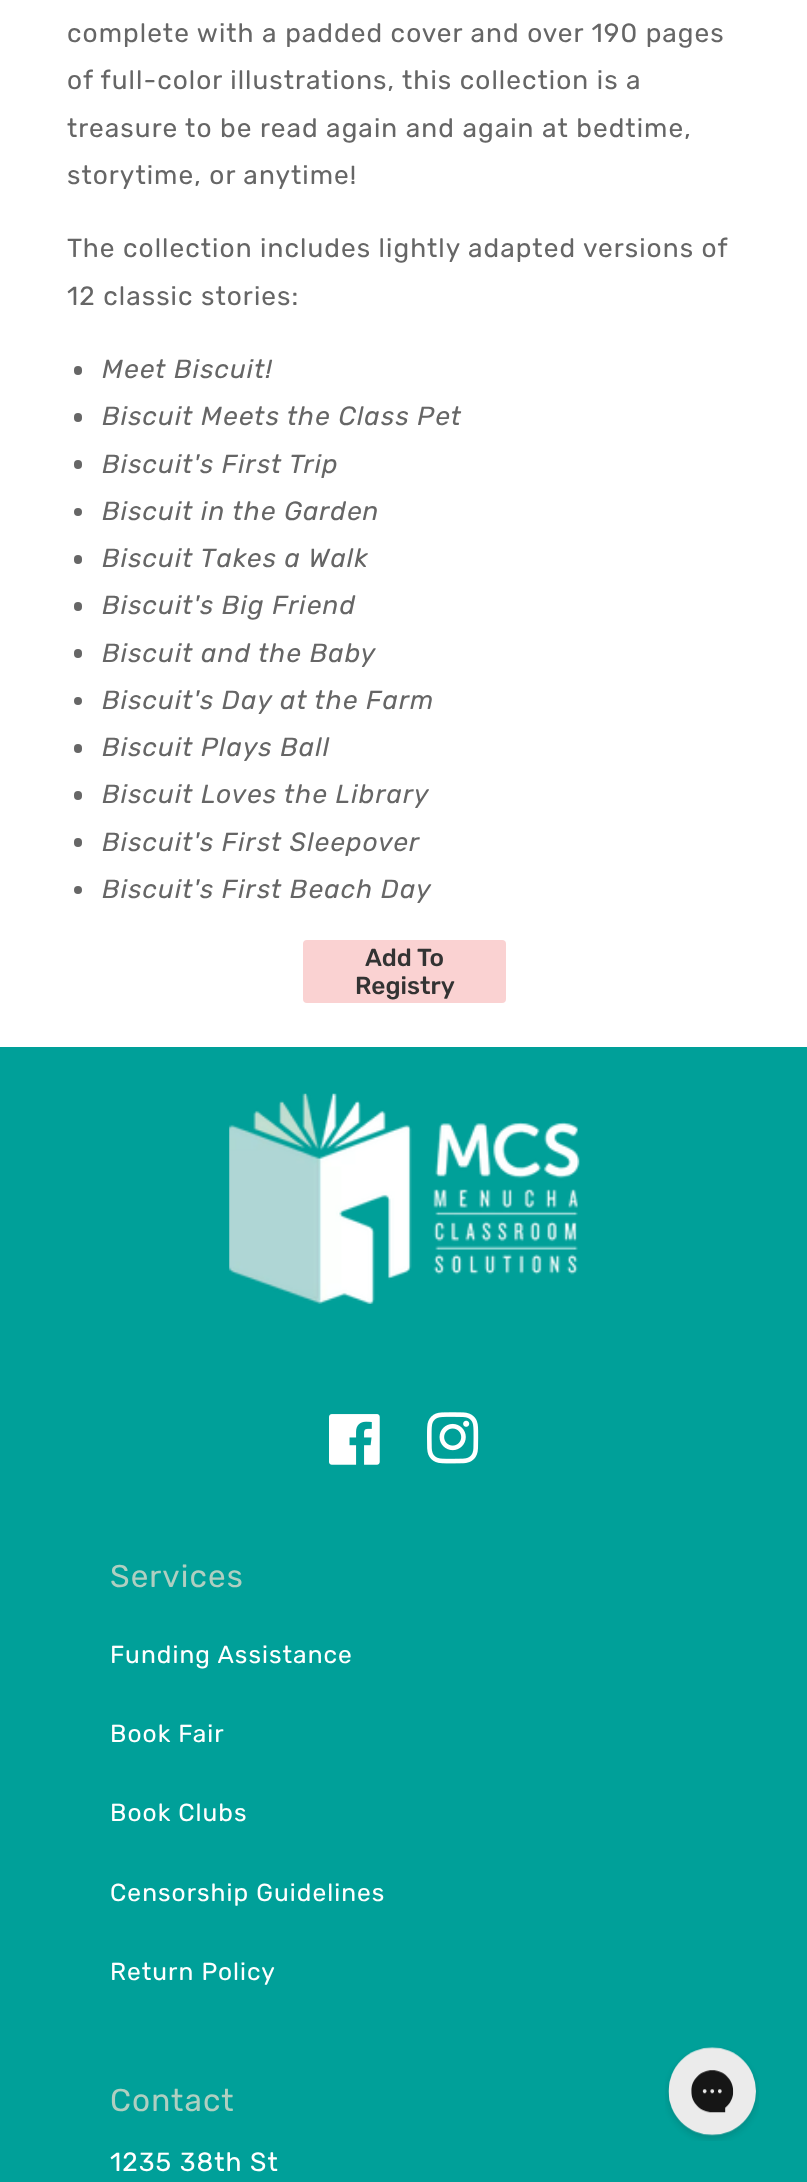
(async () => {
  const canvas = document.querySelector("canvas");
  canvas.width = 807;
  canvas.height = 2182;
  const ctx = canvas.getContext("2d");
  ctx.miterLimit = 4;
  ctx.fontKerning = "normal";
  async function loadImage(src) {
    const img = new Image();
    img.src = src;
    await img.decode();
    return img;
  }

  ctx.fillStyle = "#ffffff";
  ctx.fillRect(0, 0, 807, 2182);
  ctx.fillStyle = "#666666";
  ctx.beginPath();
  ctx.roundRect(74, 366, 8, 9, 4);
  ctx.fill();
  ctx.beginPath();
  ctx.roundRect(74, 413, 8, 9, 4);
  ctx.fill();
  ctx.beginPath();
  ctx.roundRect(74, 460, 8, 9, 4);
  ctx.fill();
  ctx.beginPath();
  ctx.arc(78, 512, 4, 0, Math.PI * 2);
  ctx.fill();
  ctx.beginPath();
  ctx.roundRect(74, 555, 8, 9, 4);
  ctx.fill();
  ctx.beginPath();
  ctx.roundRect(74, 602, 8, 9, 4);
  ctx.fill();
  ctx.beginPath();
  ctx.roundRect(74, 649, 8, 9, 4);
  ctx.fill();
  ctx.beginPath();
  ctx.arc(78, 701, 4, 0, Math.PI * 2);
  ctx.fill();
  ctx.beginPath();
  ctx.roundRect(74, 744, 8, 9, 4);
  ctx.fill();
  ctx.beginPath();
  ctx.roundRect(74, 791, 8, 9, 4);
  ctx.fill();
  ctx.beginPath();
  ctx.roundRect(74, 838, 8, 9, 4);
  ctx.fill();
  ctx.beginPath();
  ctx.arc(78, 890, 4, 0, Math.PI * 2);
  ctx.fill();
  ctx.fillStyle = "#fad2d2";
  ctx.beginPath();
  ctx.roundRect(305, 942, 199, 59, 2);
  ctx.fill();
  ctx.strokeStyle = "#fad2d2";
  ctx.lineWidth = 4;
  ctx.stroke();
  ctx.fillStyle = "#00a099";
  ctx.fillRect(0, 1047, 807, 1135);
  ctx.drawImage(await loadImage("img/1.png"), 229, 1093, 351, 211);
  ctx.drawImage(await loadImage("img/2.png"), 329, 1414, 51, 51);
  ctx.drawImage(await loadImage("img/3.png"), 427, 1412, 52, 52);
  ctx.drawImage(await loadImage("img/4.png"), 665, 2047, 94, 94);
  ctx.letterSpacing = "1.05px";
  ctx.font = "26.25px Rubik";
  ctx.fillStyle = "#666666";
  for (const [text, x, y] of [
    ["complete with a padded cover and over 190 pages", 67, 42],
    ["of full-color illustrations, this collection is a", 67, 89],
    ["treasure to be read again and again at bedtime,", 67, 137],
    ["storytime, or anytime!", 67, 184],
    ["The collection includes lightly adapted versions of", 67, 257],
    ["12 classic stories:", 67, 305],
  ]) {
    ctx.fillText(text, x, y);
  }
  ctx.font = "italic 26.25px Rubik";
  for (const [text, x, y] of [
    ["Meet Biscuit!", 102, 378],
    ["Biscuit Meets the Class Pet", 102, 425],
    ["Biscuit's First Trip", 102, 473],
    ["Biscuit in the Garden", 102, 520],
    ["Biscuit Takes a Walk", 102, 567],
    ["Biscuit's Big Friend", 102, 614],
    ["Biscuit and the Baby", 102, 662],
    ["Biscuit's Day at the Farm", 102, 709],
    ["Biscuit Plays Ball", 102, 756],
    ["Biscuit Loves the Library", 102, 803],
    ["Biscuit's First Sleepover", 102, 851],
    ["Biscuit's First Beach Day", 102, 898],
  ]) {
    ctx.fillText(text, x, y);
  }
  ctx.letterSpacing = "0px";
  ctx.font = "500 24.5px Rubik";
  ctx.fillStyle = "#333333";
  ctx.fillText("Add To", 365, 966);
  ctx.fillText("Registry", 355, 994);
  ctx.letterSpacing = "1.05px";
  ctx.font = "31.5px Rubik";
  ctx.fillStyle = "#afcfc1";
  ctx.fillText("Services", 110, 1587);
  ctx.font = "24.5px Rubik";
  ctx.fillStyle = "#ffffff";
  for (const [text, x, y] of [
    ["Funding Assistance", 110, 1663],
    ["Book Fair", 110, 1742],
    ["Book Clubs", 110, 1821],
    ["Censorship Guidelines", 110, 1901],
    ["Return Policy", 110, 1980],
  ]) {
    ctx.fillText(text, x, y);
  }
  ctx.font = "31.5px Rubik";
  ctx.fillStyle = "#afcfc1";
  ctx.fillText("Contact", 110, 2111);
  ctx.font = "26.25px Rubik";
  ctx.fillStyle = "#ffffff";
  ctx.fillText("1235 38th St", 110, 2171);
})();
